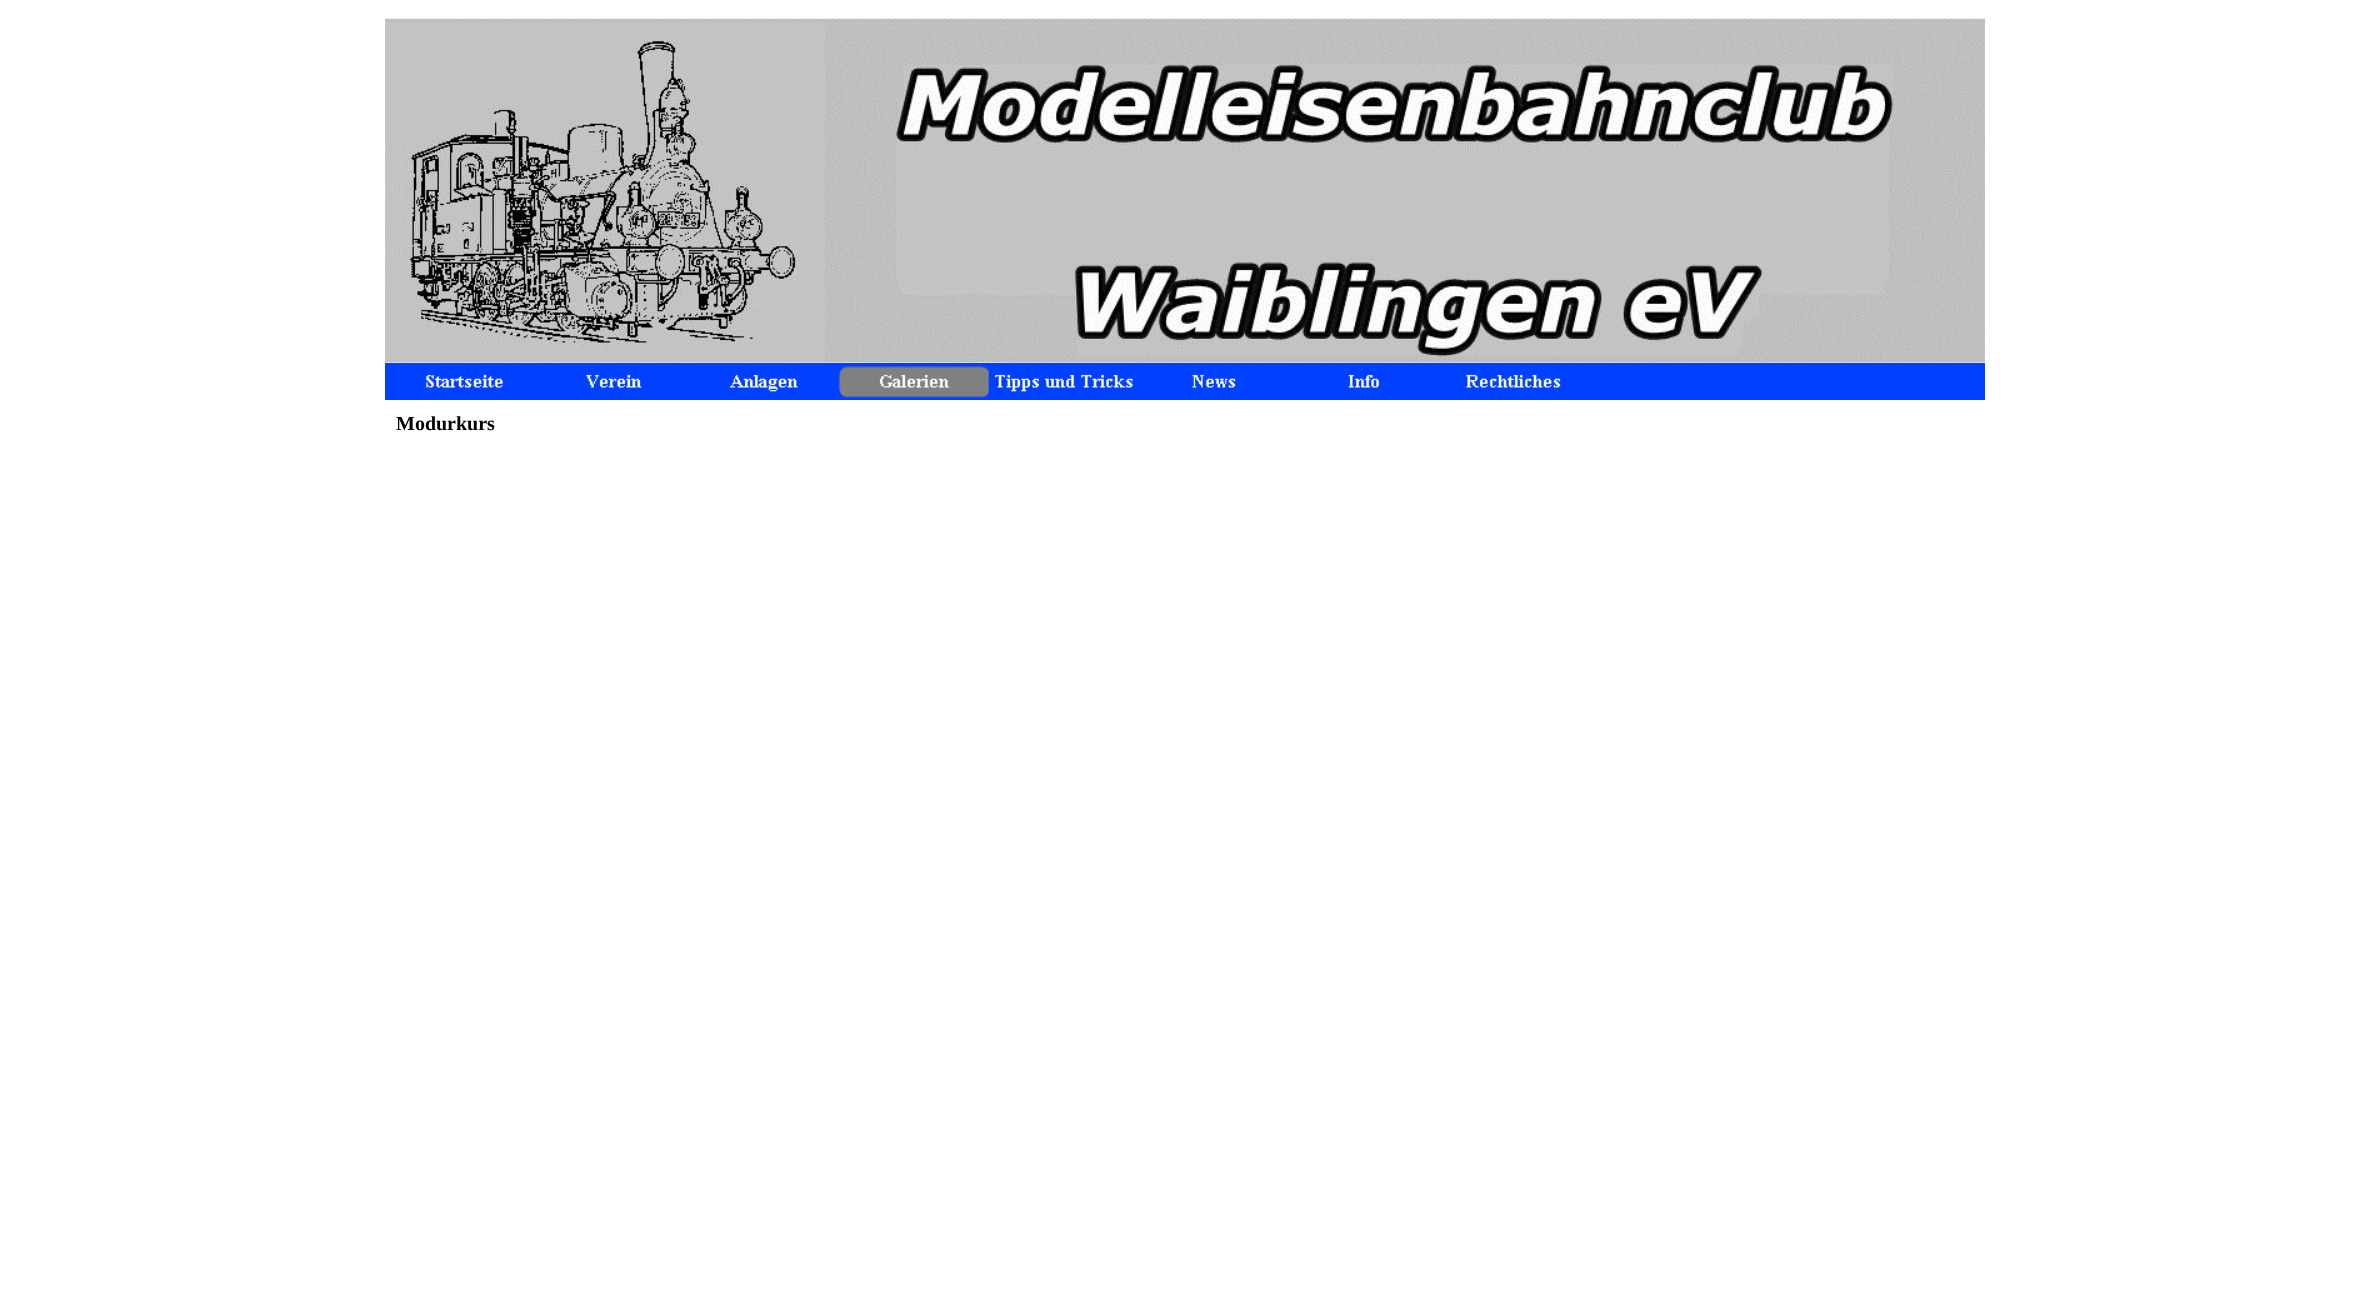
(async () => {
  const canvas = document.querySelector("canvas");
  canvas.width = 2368;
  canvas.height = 1304;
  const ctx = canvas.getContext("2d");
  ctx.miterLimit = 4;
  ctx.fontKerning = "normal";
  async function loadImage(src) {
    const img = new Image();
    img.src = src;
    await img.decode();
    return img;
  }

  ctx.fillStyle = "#ffffff";
  ctx.fillRect(0, 0, 2368, 1304);
  ctx.drawImage(await loadImage("img/1.png"), 385, 18, 1600, 345);
  ctx.fillStyle = "#0040ff";
  ctx.fillRect(385, 363, 1600, 37);
  ctx.drawImage(await loadImage("img/2.png"), 426, 374, 77, 14);
  ctx.drawImage(await loadImage("img/3.png"), 586, 374, 56, 14);
  ctx.drawImage(await loadImage("img/4.png"), 729, 374, 69, 18);
  ctx.drawImage(await loadImage("img/5.png"), 838, 366, 151, 32);
  ctx.drawImage(await loadImage("img/6.png"), 988, 373, 145, 19);
  ctx.drawImage(await loadImage("img/7.png"), 1192, 374, 44, 14);
  ctx.drawImage(await loadImage("img/8.png"), 1348, 374, 31, 14);
  ctx.drawImage(await loadImage("img/9.png"), 1466, 374, 95, 14);
  ctx.font = "bold 20px Liberation Serif";
  ctx.fillStyle = "#000000";
  ctx.fillText("Modurkurs", 396, 430);
})();
